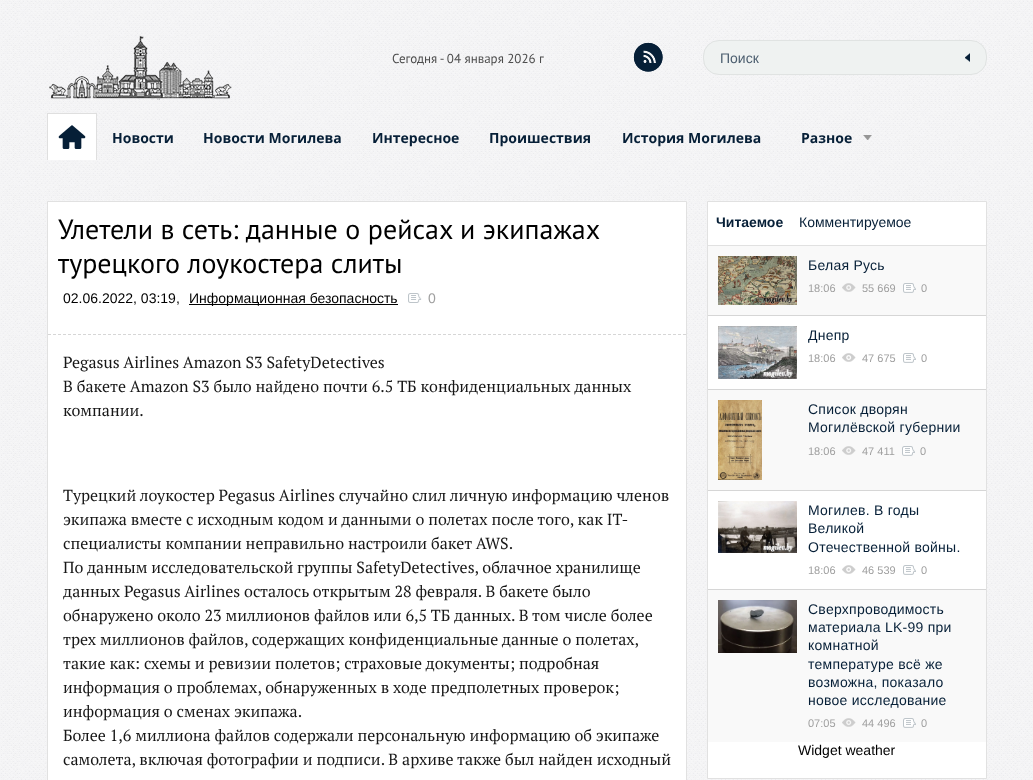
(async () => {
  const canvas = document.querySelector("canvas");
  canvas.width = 1033;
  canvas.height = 780;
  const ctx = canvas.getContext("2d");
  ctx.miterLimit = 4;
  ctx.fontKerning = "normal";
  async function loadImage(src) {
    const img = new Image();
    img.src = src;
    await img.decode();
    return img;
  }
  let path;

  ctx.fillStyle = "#ffffff";
  ctx.fillRect(0, 0, 1033, 780);
  ctx.drawImage(await loadImage("img/1.png"), 0, 0, 1033, 780);
  ctx.drawImage(await loadImage("img/2.png"), 49, 35, 183, 65);
  ctx.drawImage(await loadImage("img/3.png"), 633, 42, 30, 30);
  ctx.fillStyle = "#eff2f1";
  ctx.beginPath();
  ctx.roundRect(703.5, 40.5, 283, 34, 15.5);
  ctx.fill();
  ctx.strokeStyle = "#e0e3e2";
  ctx.stroke();
  ctx.drawImage(await loadImage("img/4.png"), 965, 53, 5, 9);
  ctx.fillStyle = "#ffffff";
  ctx.fillRect(48, 114, 48, 46);
  ctx.drawImage(await loadImage("img/5.png"), 58, 125, 28, 24);
  for (const [x, y, w, h, color] of [
    [47, 113, 50, 1, "#dfdfdf"],
    [96, 113, 1, 47, "#dfdfdf"],
    [47, 113, 1, 47, "#dfdfdf"],
  ]) {
    ctx.fillStyle = color;
    ctx.fillRect(x, y, w, h);
  }
  ctx.drawImage(await loadImage("img/6.png"), 863, 135, 9, 5);
  ctx.fillStyle = "#ffffff";
  ctx.beginPath();
  ctx.rect(47.5, 201.5, 639, 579);
  ctx.fill();
  ctx.strokeStyle = "#e1e1e1";
  ctx.stroke();
  ctx.fillStyle = "#000000";
  ctx.fillRect(189, 304, 209, 1);
  ctx.drawImage(await loadImage("img/7.png"), 408, 293, 14, 10);
  path = new Path2D("M48 334.5H686");
  ctx.strokeStyle = "#d6d6d6";
  ctx.setLineDash([3, 2]);
  ctx.stroke(path);
  ctx.fillStyle = "#ffffff";
  ctx.beginPath();
  ctx.rect(707.5, 201.5, 279, 577);
  ctx.fill();
  ctx.strokeStyle = "#e1e1e1";
  ctx.setLineDash([]);
  ctx.stroke();
  for (const [x, y, w, h, color] of [
    [708, 245, 278, 1, "#e1e1e1"],
    [708, 246, 278, 69, "#f9f9f9"],
    [708, 315, 278, 1, "#d6d6d6"],
  ]) {
    ctx.fillStyle = color;
    ctx.fillRect(x, y, w, h);
  }
  ctx.drawImage(await loadImage("img/8.png"), 718, 256, 79, 49);
  ctx.drawImage(await loadImage("img/9.png"), 842, 283, 14, 9);
  ctx.drawImage(await loadImage("img/10.png"), 903, 283, 13, 10);
  ctx.fillRect(708, 389, 278, 1);
  ctx.drawImage(await loadImage("img/11.png"), 718, 326, 79, 53);
  ctx.drawImage(await loadImage("img/12.png"), 842, 353, 14, 9);
  ctx.drawImage(await loadImage("img/13.png"), 903, 353, 13, 10);
  ctx.fillStyle = "#f9f9f9";
  ctx.fillRect(708, 390, 278, 100);
  ctx.fillStyle = "#d6d6d6";
  ctx.fillRect(708, 490, 278, 1);
  ctx.drawImage(await loadImage("img/14.png"), 718, 400, 44, 80);
  ctx.drawImage(await loadImage("img/9.png"), 842, 446, 14, 9);
  ctx.drawImage(await loadImage("img/10.png"), 902, 446, 13, 10);
  ctx.fillRect(708, 589, 278, 1);
  ctx.drawImage(await loadImage("img/15.png"), 718, 501, 79, 52);
  ctx.drawImage(await loadImage("img/12.png"), 842, 565, 14, 9);
  ctx.drawImage(await loadImage("img/13.png"), 903, 565, 13, 10);
  ctx.fillStyle = "#f9f9f9";
  ctx.fillRect(708, 590, 278, 152);
  ctx.drawImage(await loadImage("img/16.png"), 718, 600, 79, 53);
  ctx.drawImage(await loadImage("img/9.png"), 842, 718, 14, 9);
  ctx.drawImage(await loadImage("img/10.png"), 903, 718, 13, 10);
  ctx.font = "13px PT Sans";
  ctx.fillStyle = "#4d4d4d";
  ctx.fillText("Сегодня - 04 января 2026 г", 392, 63);
  ctx.font = "14px Liberation Sans";
  ctx.fillStyle = "#4c5e6f";
  ctx.fillText("Поиск", 720, 63);
  ctx.font = "bold 14px Open Sans";
  ctx.fillStyle = "#061f37";
  for (const [text, x, y] of [
    ["Новости", 112, 143],
    ["Новости Могилева", 203, 143],
    ["Интересное", 372, 143],
    ["Проишествия", 489, 143],
    ["История Могилева", 622, 143],
    ["Разное", 801, 143],
  ]) {
    ctx.fillText(text, x, y);
  }
  ctx.font = "28px PT Sans";
  ctx.fillStyle = "#000000";
  ctx.fillText("Улетели в сеть: данные о рейсах и экипажах", 58, 239);
  ctx.fillText("турецкого лоукостера слиты", 58, 273);
  ctx.font = "14px Liberation Sans";
  ctx.fillText("02.06.2022, 03:19,", 63, 303);
  ctx.fillText("Информационная безопасность", 189, 303);
  ctx.fillStyle = "#9f9f9f";
  ctx.fillText("0", 428, 303);
  ctx.font = "16px PT Serif";
  ctx.fillStyle = "#171717";
  for (const [text, x, y] of [
    ["Pegasus Airlines Amazon S3 SafetyDetectives", 63, 368],
    ["В бакете Amazon S3 было найдено почти 6.5 ТБ конфиденциальных данных", 63, 392],
    ["компании.", 63, 416],
    ["Турецкий лоукостер Pegasus Airlines случайно слил личную информацию членов", 63, 501],
    ["экипажа вместе с исходным кодом и данными о полетах после того, как IT-", 63, 525],
    ["специалисты компании неправильно настроили бакет AWS.", 63, 549],
    ["По данным исследовательской группы SafetyDetectives, облачное хранилище", 63, 573],
    ["данных Pegasus Airlines осталось открытым 28 февраля. В бакете было", 63, 597],
    ["обнаружено около 23 миллионов файлов или 6,5 ТБ данных. В том числе более", 63, 621],
    ["трех миллионов файлов, содержащих конфиденциальные данные о полетах,", 63, 645],
    ["такие как: схемы и ревизии полетов; страховые документы; подробная", 63, 669],
    ["информация о проблемах, обнаруженных в ходе предполетных проверок;", 63, 693],
    ["информация о сменах экипажа.", 63, 717],
    ["Более 1,6 миллиона файлов содержали персональную информацию об экипаже", 63, 741],
    ["самолета, включая фотографии и подписи. В архиве также был найден исходный", 63, 765],
  ]) {
    ctx.fillText(text, x, y);
  }
  ctx.font = "bold 14px Liberation Sans";
  ctx.fillStyle = "#061f37";
  ctx.fillText("Читаемое", 716, 227);
  ctx.font = "14px Liberation Sans";
  ctx.fillText("Комментируемое", 799, 227);
  ctx.letterSpacing = "0.25px";
  ctx.fillText("Белая Русь", 808, 270);
  ctx.letterSpacing = "0px";
  ctx.font = "11px Liberation Sans";
  ctx.fillStyle = "#9f9f9f";
  for (const [text, x, y] of [
    ["18:06", 808, 292],
    ["55 669", 862, 292],
    ["0", 921, 292],
  ]) {
    ctx.fillText(text, x, y);
  }
  ctx.letterSpacing = "0.25px";
  ctx.font = "14px Liberation Sans";
  ctx.fillStyle = "#061f37";
  ctx.fillText("Днепр", 808, 340);
  ctx.letterSpacing = "0px";
  ctx.font = "11px Liberation Sans";
  ctx.fillStyle = "#9f9f9f";
  for (const [text, x, y] of [
    ["18:06", 808, 362],
    ["47 675", 862, 362],
    ["0", 921, 362],
  ]) {
    ctx.fillText(text, x, y);
  }
  ctx.letterSpacing = "0.25px";
  ctx.font = "14px Liberation Sans";
  ctx.fillStyle = "#061f37";
  ctx.fillText("Список дворян", 808, 414);
  ctx.fillText("Могилёвской губернии", 808, 432);
  ctx.letterSpacing = "0px";
  ctx.font = "11px Liberation Sans";
  ctx.fillStyle = "#9f9f9f";
  for (const [text, x, y] of [
    ["18:06", 808, 455],
    ["47 411", 862, 455],
    ["0", 920, 455],
  ]) {
    ctx.fillText(text, x, y);
  }
  ctx.letterSpacing = "0.25px";
  ctx.font = "14px Liberation Sans";
  ctx.fillStyle = "#061f37";
  for (const [text, x, y] of [
    ["Могилев. В годы", 808, 515],
    ["Великой", 808, 533],
    ["Отечественной войны.", 808, 552],
  ]) {
    ctx.fillText(text, x, y);
  }
  ctx.letterSpacing = "0px";
  ctx.font = "11px Liberation Sans";
  ctx.fillStyle = "#9f9f9f";
  for (const [text, x, y] of [
    ["18:06", 808, 574],
    ["46 539", 862, 574],
    ["0", 921, 574],
  ]) {
    ctx.fillText(text, x, y);
  }
  ctx.letterSpacing = "0.25px";
  ctx.font = "14px Liberation Sans";
  ctx.fillStyle = "#061f37";
  for (const [text, x, y] of [
    ["Сверхпроводимость", 808, 614],
    ["материала LK-99 при", 808, 632],
    ["комнатной", 808, 650],
    ["температуре всё же", 808, 669],
    ["возможна, показало", 808, 687],
    ["новое исследование", 808, 705],
  ]) {
    ctx.fillText(text, x, y);
  }
  ctx.letterSpacing = "0px";
  ctx.font = "11px Liberation Sans";
  ctx.fillStyle = "#9f9f9f";
  for (const [text, x, y] of [
    ["07:05", 808, 727],
    ["44 496", 862, 727],
    ["0", 921, 727],
  ]) {
    ctx.fillText(text, x, y);
  }
  ctx.font = "14px Liberation Sans";
  ctx.fillStyle = "#000000";
  ctx.fillText("Widget weather", 798, 755);
})();
